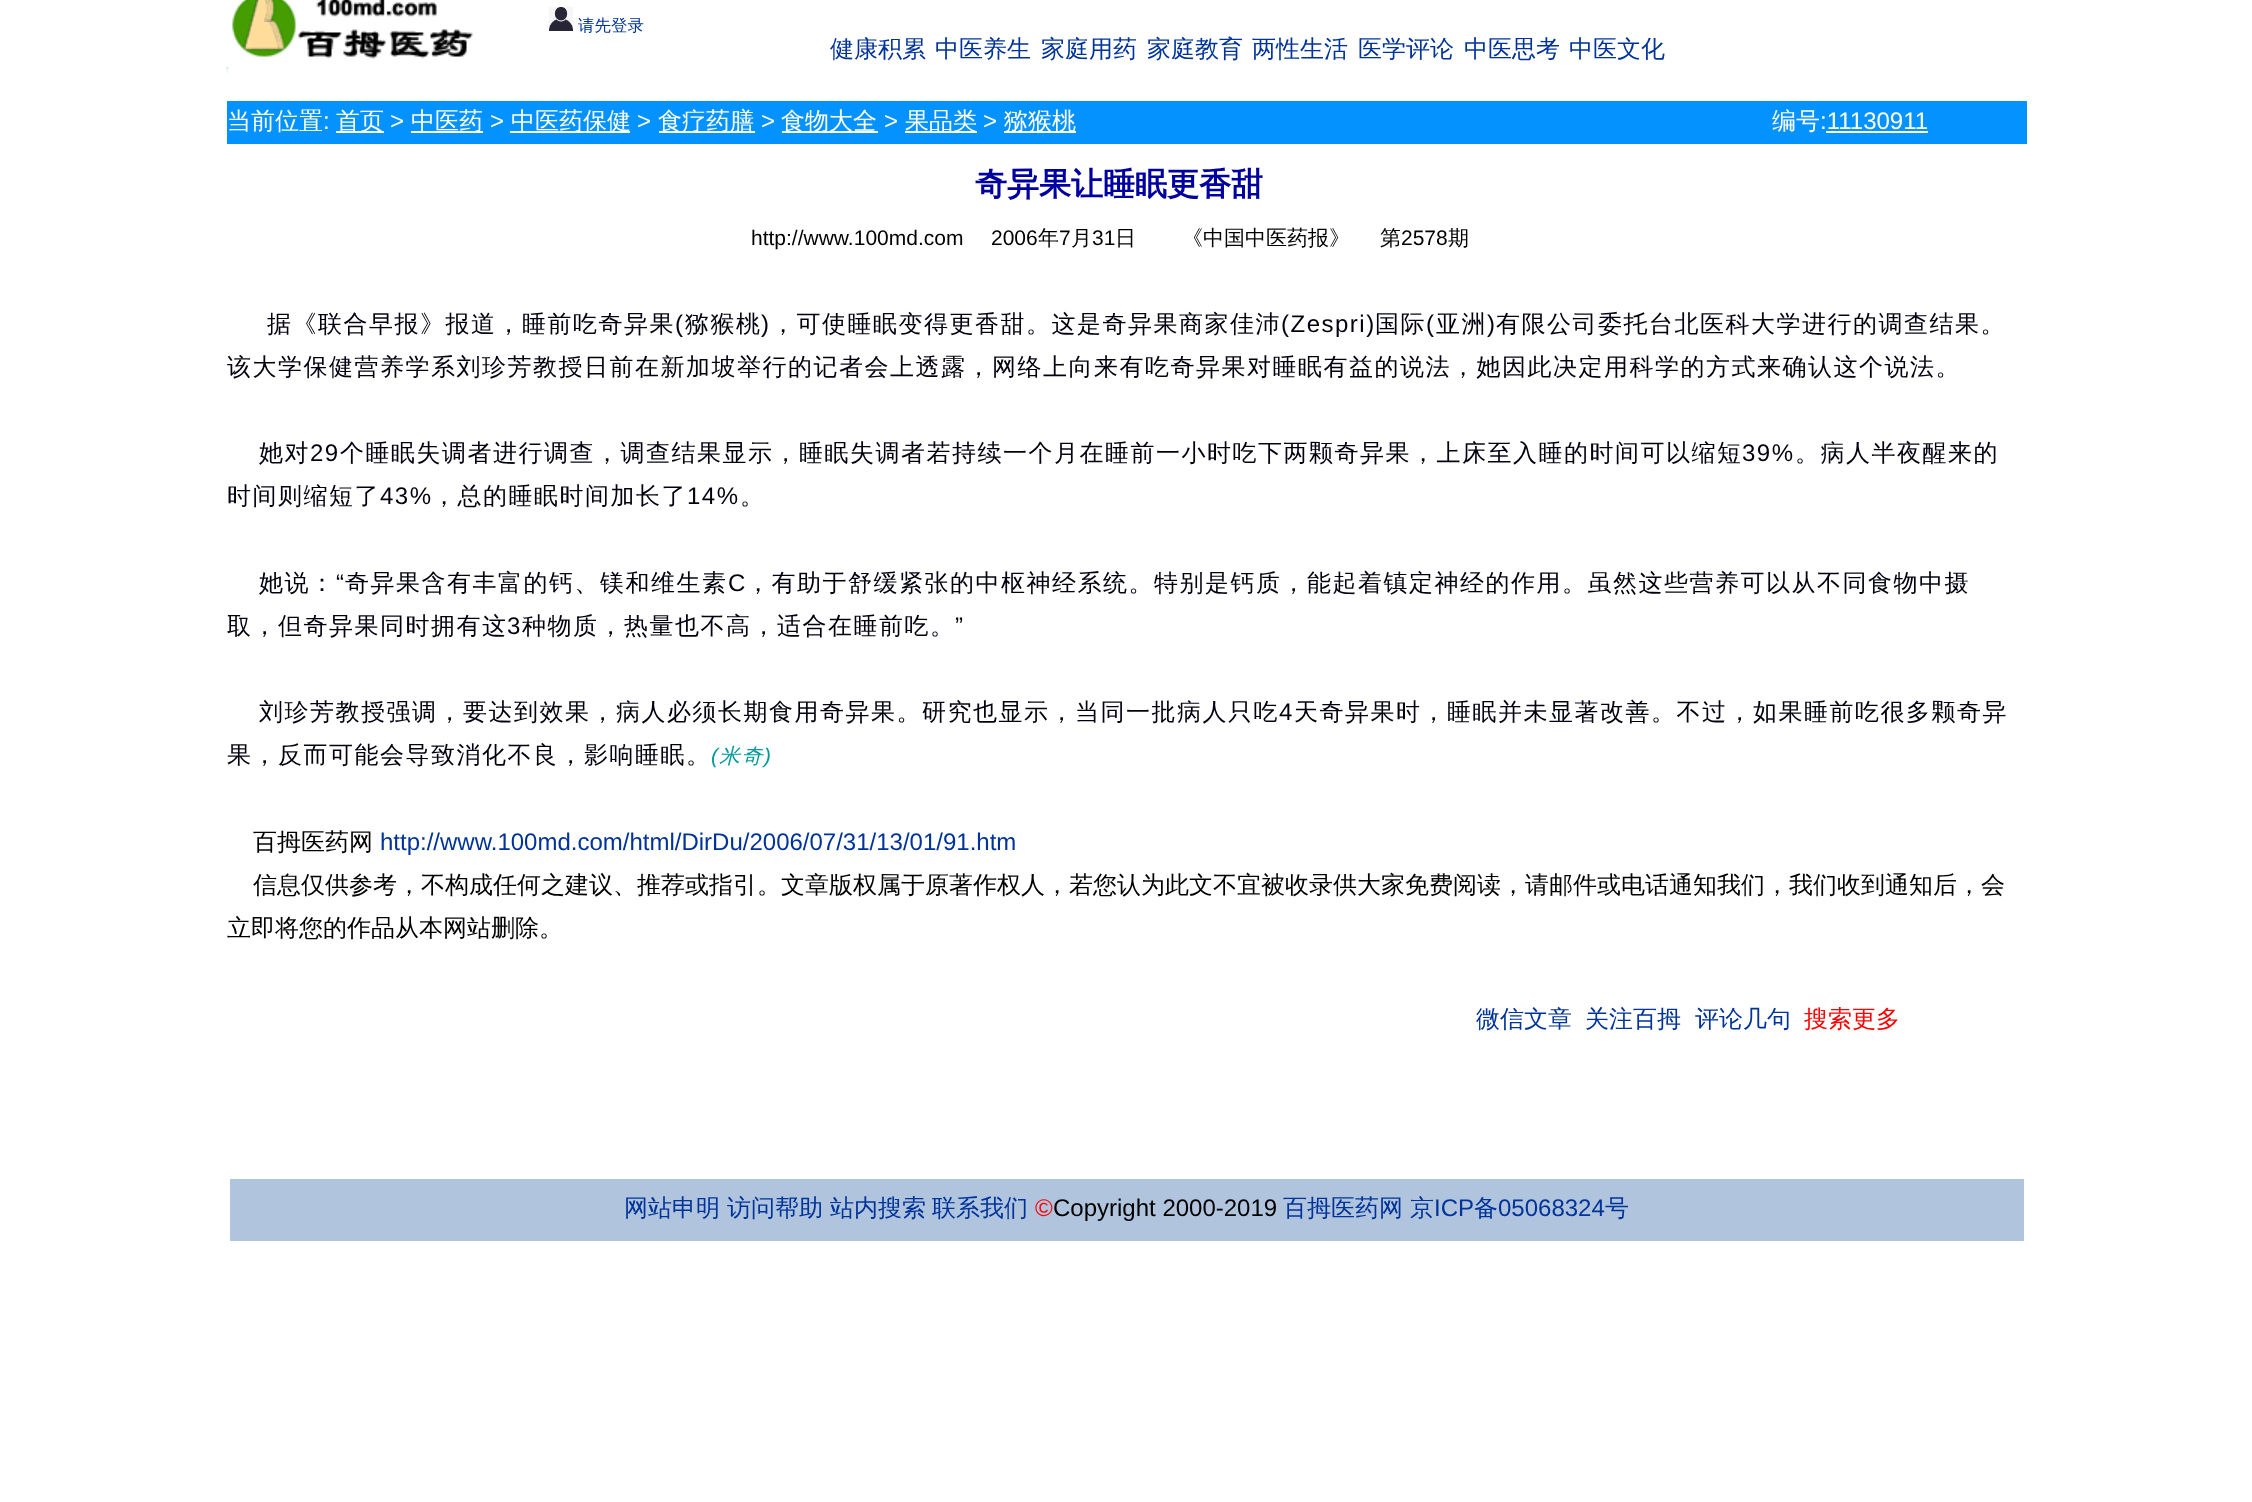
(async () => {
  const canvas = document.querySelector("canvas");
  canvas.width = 2252;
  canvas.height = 1502;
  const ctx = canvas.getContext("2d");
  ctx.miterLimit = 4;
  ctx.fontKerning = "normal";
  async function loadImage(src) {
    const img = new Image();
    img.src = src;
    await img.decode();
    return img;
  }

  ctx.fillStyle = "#ffffff";
  ctx.fillRect(0, 0, 2252, 1502);
  ctx.drawImage(await loadImage("img/1.png"), 226, 0, 247, 73);
  ctx.drawImage(await loadImage("img/2.png"), 549, 7, 24, 24);
  for (const [x, y, w, h, color] of [
    [227, 101, 1800, 43, "#0492fe"],
    [336, 131, 48, 2, "#ffffff"],
    [411, 131, 72, 2, "#ffffff"],
    [510, 131, 120, 2, "#ffffff"],
    [659, 131, 96, 2, "#ffffff"],
    [782, 131, 96, 2, "#ffffff"],
    [905, 131, 72, 2, "#ffffff"],
    [1004, 131, 72, 2, "#ffffff"],
    [1826, 131, 102, 2, "#ffffff"],
    [230, 1179, 1794, 62, "#b0c4de"],
  ]) {
    ctx.fillStyle = color;
    ctx.fillRect(x, y, w, h);
  }
  ctx.font = "500 16.5px WenQuanYi Zen Hei";
  ctx.fillStyle = "#003399";
  ctx.fillText("请先登录", 578, 31);
  ctx.font = "500 24px WenQuanYi Zen Hei";
  for (const [text, x, y] of [
    ["健康积累", 830, 57],
    ["中医养生", 935, 57],
    ["家庭用药", 1041, 57],
    ["家庭教育", 1147, 57],
    ["两性生活", 1252, 57],
    ["医学评论", 1358, 57],
    ["中医思考", 1464, 57],
    ["中医文化", 1569, 57],
  ]) {
    ctx.fillText(text, x, y);
  }
  ctx.fillStyle = "#ffffff";
  ctx.fillText("当前位置", 227, 129);
  ctx.font = "24px Liberation Sans";
  ctx.fillText(":", 323, 129);
  ctx.font = "500 24px WenQuanYi Zen Hei";
  ctx.fillText("首页", 336, 129);
  ctx.font = "24px Liberation Sans";
  ctx.fillText(">", 390, 129);
  ctx.font = "500 24px WenQuanYi Zen Hei";
  ctx.fillText("中医药", 411, 129);
  ctx.font = "24px Liberation Sans";
  ctx.fillText(">", 490, 129);
  ctx.font = "500 24px WenQuanYi Zen Hei";
  ctx.fillText("中医药保健", 511, 129);
  ctx.font = "24px Liberation Sans";
  ctx.fillText(">", 637, 129);
  ctx.font = "500 24px WenQuanYi Zen Hei";
  ctx.fillText("食疗药膳", 658, 129);
  ctx.font = "24px Liberation Sans";
  ctx.fillText(">", 761, 129);
  ctx.font = "500 24px WenQuanYi Zen Hei";
  ctx.fillText("食物大全", 781, 129);
  ctx.font = "24px Liberation Sans";
  ctx.fillText(">", 884, 129);
  ctx.font = "500 24px WenQuanYi Zen Hei";
  ctx.fillText("果品类", 905, 129);
  ctx.font = "24px Liberation Sans";
  ctx.fillText(">", 983, 129);
  ctx.font = "500 24px WenQuanYi Zen Hei";
  ctx.fillText("猕猴桃", 1004, 129);
  ctx.fillText("编号", 1772, 129);
  ctx.font = "24px Liberation Sans";
  ctx.fillText(":11130911", 1820, 129);
  ctx.font = "bold 32px WenQuanYi Zen Hei";
  ctx.fillStyle = "#0000a0";
  ctx.fillText("奇异果让睡眠更香甜", 975, 195);
  ctx.font = "21px Liberation Sans";
  ctx.fillStyle = "#000000";
  ctx.fillText("http://www.100md.com", 751, 245);
  ctx.fillText("2006", 991, 245);
  ctx.font = "500 21px WenQuanYi Zen Hei";
  ctx.fillText("年", 1038, 245);
  ctx.font = "21px Liberation Sans";
  ctx.fillText("7", 1059, 245);
  ctx.font = "500 21px WenQuanYi Zen Hei";
  ctx.fillText("月", 1071, 245);
  ctx.font = "21px Liberation Sans";
  ctx.fillText("31", 1092, 245);
  ctx.font = "500 21px WenQuanYi Zen Hei";
  for (const [text, x, y] of [
    ["日", 1115, 245],
    ["《中国中医药报》", 1182, 245],
    ["第", 1380, 245],
  ]) {
    ctx.fillText(text, x, y);
  }
  ctx.font = "21px Liberation Sans";
  ctx.fillText("2578", 1401, 245);
  ctx.font = "500 21px WenQuanYi Zen Hei";
  ctx.fillText("期", 1448, 245);
  ctx.letterSpacing = "1.5px";
  ctx.font = "500 24px WenQuanYi Zen Hei";
  ctx.fillStyle = "#00000f";
  ctx.fillText("据《联合早报》报道，睡前吃奇异果", 267, 332);
  ctx.font = "24px Liberation Sans";
  ctx.fillText("(", 675, 332);
  ctx.font = "500 24px WenQuanYi Zen Hei";
  ctx.fillText("猕猴桃", 685, 332);
  ctx.font = "24px Liberation Sans";
  ctx.fillText(")", 761, 332);
  ctx.font = "500 24px WenQuanYi Zen Hei";
  ctx.fillText("，可使睡眠变得更香甜。这是奇异果商家佳沛", 771, 332);
  ctx.font = "24px Liberation Sans";
  ctx.fillText("(Zespri)", 1281, 332);
  ctx.font = "500 24px WenQuanYi Zen Hei";
  ctx.fillText("国际", 1375, 332);
  ctx.font = "24px Liberation Sans";
  ctx.fillText("(", 1426, 332);
  ctx.font = "500 24px WenQuanYi Zen Hei";
  ctx.fillText("亚洲", 1436, 332);
  ctx.font = "24px Liberation Sans";
  ctx.fillText(")", 1487, 332);
  ctx.font = "500 24px WenQuanYi Zen Hei";
  for (const [text, x, y] of [
    ["有限公司委托台北医科大学进行的调查结果。", 1496, 332],
    ["该大学保健营养学系刘珍芳教授日前在新加坡举行的记者会上透露，网络上向来有吃奇异果对睡眠有益的说法，她因此决定用科学的方式来确认这个说法。", 227, 375],
    ["她对", 259, 461],
  ]) {
    ctx.fillText(text, x, y);
  }
  ctx.font = "24px Liberation Sans";
  ctx.fillText("29", 310, 461);
  ctx.font = "500 24px WenQuanYi Zen Hei";
  ctx.fillText("个睡眠失调者进行调查，调查结果显示，睡眠失调者若持续一个月在睡前一小时吃下两颗奇异果，上床至入睡的时间可以缩短", 340, 461);
  ctx.font = "24px Liberation Sans";
  ctx.fillText("39%", 1742, 461);
  ctx.font = "500 24px WenQuanYi Zen Hei";
  ctx.fillText("。病人半夜醒来的", 1795, 461);
  ctx.fillText("时间则缩短了", 227, 504);
  ctx.font = "24px Liberation Sans";
  ctx.fillText("43%", 380, 504);
  ctx.font = "500 24px WenQuanYi Zen Hei";
  ctx.fillText("，总的睡眠时间加长了", 432, 504);
  ctx.font = "24px Liberation Sans";
  ctx.fillText("14%", 687, 504);
  ctx.font = "500 24px WenQuanYi Zen Hei";
  ctx.fillText("。", 740, 504);
  ctx.fillText("她说：", 259, 591);
  ctx.font = "24px Liberation Sans";
  ctx.fillText("“", 336, 591);
  ctx.font = "500 24px WenQuanYi Zen Hei";
  ctx.fillText("奇异果含有丰富的钙、镁和维生素", 345, 591);
  ctx.font = "24px Liberation Sans";
  ctx.fillText("C", 728, 591);
  ctx.font = "500 24px WenQuanYi Zen Hei";
  ctx.fillText("，有助于舒缓紧张的中枢神经系统。特别是钙质，能起着镇定神经的作用。虽然这些营养可以从不同食物中摄", 746, 591);
  ctx.fillText("取，但奇异果同时拥有这", 227, 634);
  ctx.font = "24px Liberation Sans";
  ctx.fillText("3", 507, 634);
  ctx.font = "500 24px WenQuanYi Zen Hei";
  ctx.fillText("种物质，热量也不高，适合在睡前吃。", 522, 634);
  ctx.font = "24px Liberation Sans";
  ctx.fillText("”", 955, 634);
  ctx.font = "500 24px WenQuanYi Zen Hei";
  ctx.fillText("刘珍芳教授强调，要达到效果，病人必须长期食用奇异果。研究也显示，当同一批病人只吃", 259, 720);
  ctx.font = "24px Liberation Sans";
  ctx.fillText("4", 1279, 720);
  ctx.font = "500 24px WenQuanYi Zen Hei";
  ctx.fillText("天奇异果时，睡眠并未显著改善。不过，如果睡前吃很多颗奇异", 1294, 720);
  ctx.fillText("果，反而可能会导致消化不良，影响睡眠。", 227, 763);
  ctx.font = "italic 21px Liberation Sans";
  ctx.fillStyle = "#009999";
  ctx.fillText("(", 711, 763);
  ctx.font = "italic 500 21px WenQuanYi Zen Hei";
  ctx.fillText("米奇", 719, 763);
  ctx.font = "italic 21px Liberation Sans";
  ctx.fillText(")", 764, 763);
  ctx.letterSpacing = "0px";
  ctx.font = "500 24px WenQuanYi Zen Hei";
  ctx.fillStyle = "#000000";
  ctx.fillText("百拇医药网", 253, 850);
  ctx.font = "24px Liberation Sans";
  ctx.fillStyle = "#003399";
  ctx.fillText("http://www.100md.com/html/DirDu/2006/07/31/13/01/91.htm", 380, 850);
  ctx.font = "500 24px WenQuanYi Zen Hei";
  ctx.fillStyle = "#000000";
  ctx.fillText("信息仅供参考，不构成任何之建议、推荐或指引。文章版权属于原著作权人，若您认为此文不宜被收录供大家免费阅读，请邮件或电话通知我们，我们收到通知后，会", 253, 893);
  ctx.fillText("立即将您的作品从本网站删除。", 227, 936);
  ctx.fillStyle = "#003399";
  for (const [text, x, y] of [
    ["微信文章", 1476, 1027],
    ["关注百拇", 1585, 1027],
    ["评论几句", 1695, 1027],
  ]) {
    ctx.fillText(text, x, y);
  }
  ctx.fillStyle = "#ff0000";
  ctx.fillText("搜索更多", 1804, 1027);
  ctx.fillStyle = "#003399";
  for (const [text, x, y] of [
    ["网站申明", 624, 1216],
    ["访问帮助", 727, 1216],
    ["站内搜索", 830, 1216],
    ["联系我们", 932, 1216],
  ]) {
    ctx.fillText(text, x, y);
  }
  ctx.font = "24px Liberation Sans";
  ctx.fillStyle = "#ff0000";
  ctx.fillText("©", 1035, 1216);
  ctx.fillStyle = "#000000";
  ctx.fillText("Copyright 2000-2019", 1053, 1216);
  ctx.font = "500 24px WenQuanYi Zen Hei";
  ctx.fillStyle = "#003399";
  ctx.fillText("百拇医药网", 1283, 1216);
  ctx.fillText("京", 1410, 1216);
  ctx.font = "24px Liberation Sans";
  ctx.fillText("ICP", 1434, 1216);
  ctx.font = "500 24px WenQuanYi Zen Hei";
  ctx.fillText("备", 1474, 1216);
  ctx.font = "24px Liberation Sans";
  ctx.fillText("05068324", 1498, 1216);
  ctx.font = "500 24px WenQuanYi Zen Hei";
  ctx.fillText("号", 1605, 1216);
})();
